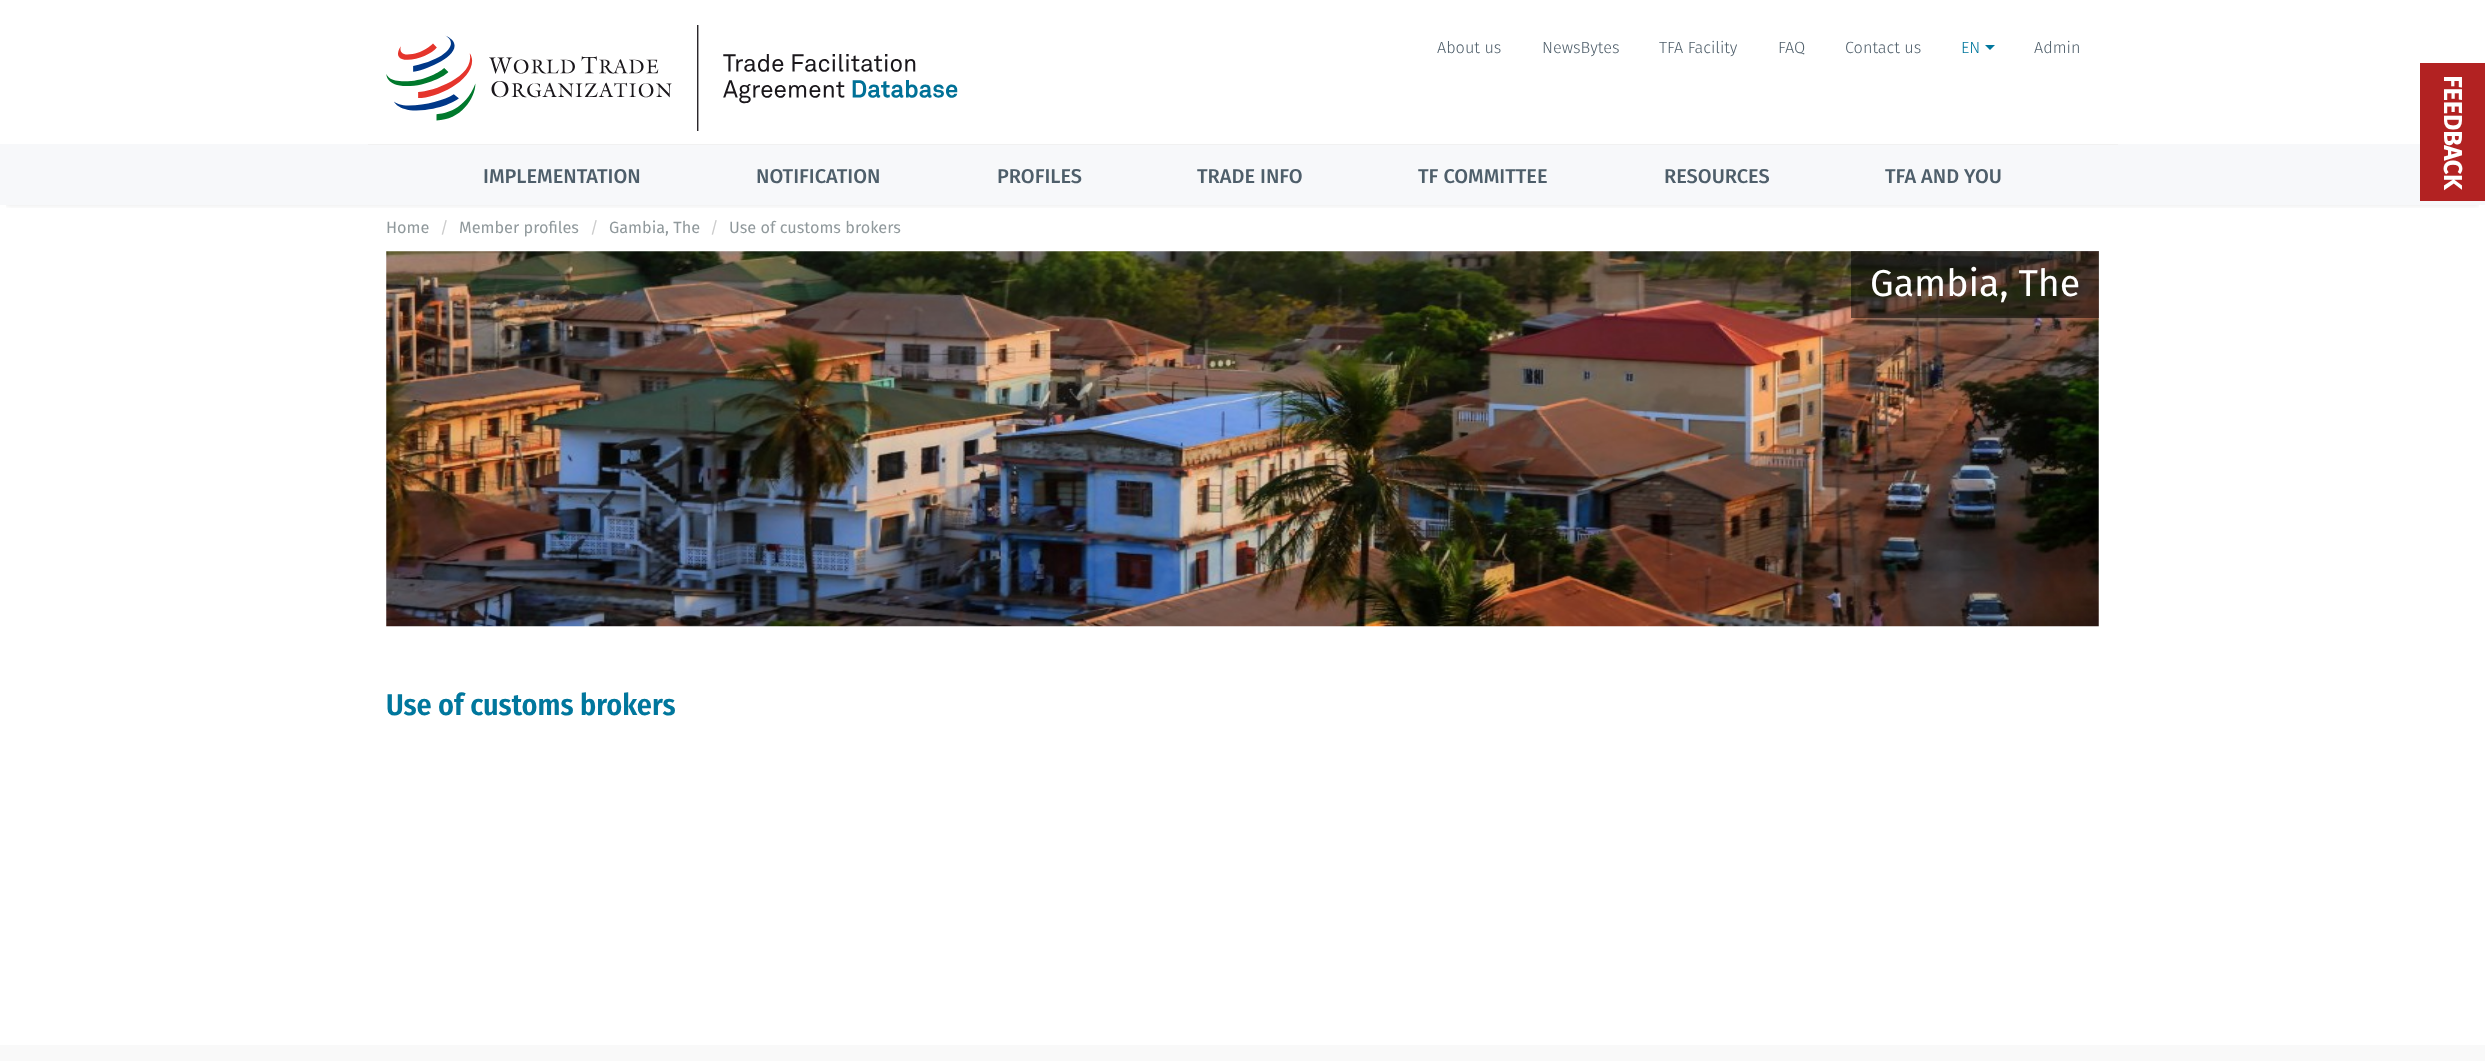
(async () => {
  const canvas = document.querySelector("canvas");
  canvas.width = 2485;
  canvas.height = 1061;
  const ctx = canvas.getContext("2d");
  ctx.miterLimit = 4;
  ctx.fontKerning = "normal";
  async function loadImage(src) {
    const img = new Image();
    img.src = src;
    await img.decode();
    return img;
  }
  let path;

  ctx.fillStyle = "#ffffff";
  ctx.fillRect(0, 0, 2485, 1061);
  ctx.save();
  ctx.beginPath();
  ctx.rect(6, 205, 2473, 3);
  ctx.clip();
  ctx.fillStyle = "rgba(0, 0, 0, 0.1)";
  ctx.filter = "blur(3px)";
  ctx.beginPath();
  ctx.rect(6, 13, 2473, 192);
  ctx.fill();
  ctx.filter = "none";
  ctx.restore();
  ctx.drawImage(await loadImage("img/1.png"), 386, 25, 572, 106);
  ctx.fillStyle = "#00779d";
  path = new Path2D("M1985 45H1995L1990 50Z");
  ctx.fill(path);
  ctx.fillStyle = "#f7f8fa";
  ctx.fillRect(0, 144, 2485, 61);
  ctx.fillStyle = "#f1f1f1";
  ctx.fillRect(368, 144, 1750, 1);
  ctx.drawImage(await loadImage("img/2.png"), 386, 251, 1713, 376);
  for (const [x, y, w, h, color] of [
    [1851, 251, 248, 67, "rgba(0, 0, 0, 0.5)"],
    [0, 1045, 2485, 16, "#f9f9f9"],
    [2420, 63, 65, 138, "#b22222"],
  ]) {
    ctx.fillStyle = color;
    ctx.fillRect(x, y, w, h);
  }
  ctx.font = "300 16.25px Fira Sans";
  ctx.fillStyle = "#4e5e6a";
  for (const [text, x, y] of [
    ["About us", 1437, 53],
    ["NewsBytes", 1542, 53],
    ["TFA Facility", 1659, 53],
    ["FAQ", 1778, 53],
    ["Contact us", 1845, 53],
  ]) {
    ctx.fillText(text, x, y);
  }
  ctx.fillStyle = "#00779d";
  ctx.fillText("EN", 1961, 53);
  ctx.fillStyle = "#4e5e6a";
  ctx.fillText("Admin", 2034, 53);
  ctx.font = "500 20px Fira Sans";
  for (const [text, x, y] of [
    ["IMPLEMENTATION", 483, 183],
    ["NOTIFICATION", 756, 183],
    ["PROFILES", 997, 183],
    ["TRADE INFO", 1197, 183],
    ["TF COMMITTEE", 1418, 183],
    ["RESOURCES", 1664, 183],
    ["TFA AND YOU", 1885, 183],
  ]) {
    ctx.fillText(text, x, y);
  }
  ctx.font = "16.25px Fira Sans";
  ctx.fillStyle = "#90999c";
  ctx.fillText("Home", 386, 233);
  ctx.fillStyle = "#cccccc";
  ctx.fillText("/", 440, 233);
  ctx.fillStyle = "#90999c";
  ctx.fillText("Member profiles", 459, 233);
  ctx.fillStyle = "#cccccc";
  ctx.fillText("/", 590, 233);
  ctx.fillStyle = "#90999c";
  ctx.fillText("Gambia, The", 609, 233);
  ctx.fillStyle = "#cccccc";
  ctx.fillText("/", 710, 233);
  ctx.fillStyle = "#90999c";
  ctx.fillText("Use of customs brokers", 729, 233);
  ctx.font = "37.5px Fira Sans";
  ctx.fillStyle = "#ffffff";
  ctx.fillText("Gambia, The", 1870, 296);
  ctx.font = "600 30px Fira Sans Condensed";
  ctx.fillStyle = "#00779d";
  ctx.fillText("Use of customs brokers", 386, 715);
  ctx.font = "bold 25px Fira Sans";
  ctx.fillStyle = "#ffffff";
  ctx.save();
  ctx.translate(2444, 75);
  ctx.rotate(90 * Math.PI / 180);
  ctx.fillText("FEEDBACK", 0, 0);
  ctx.restore();
})();
